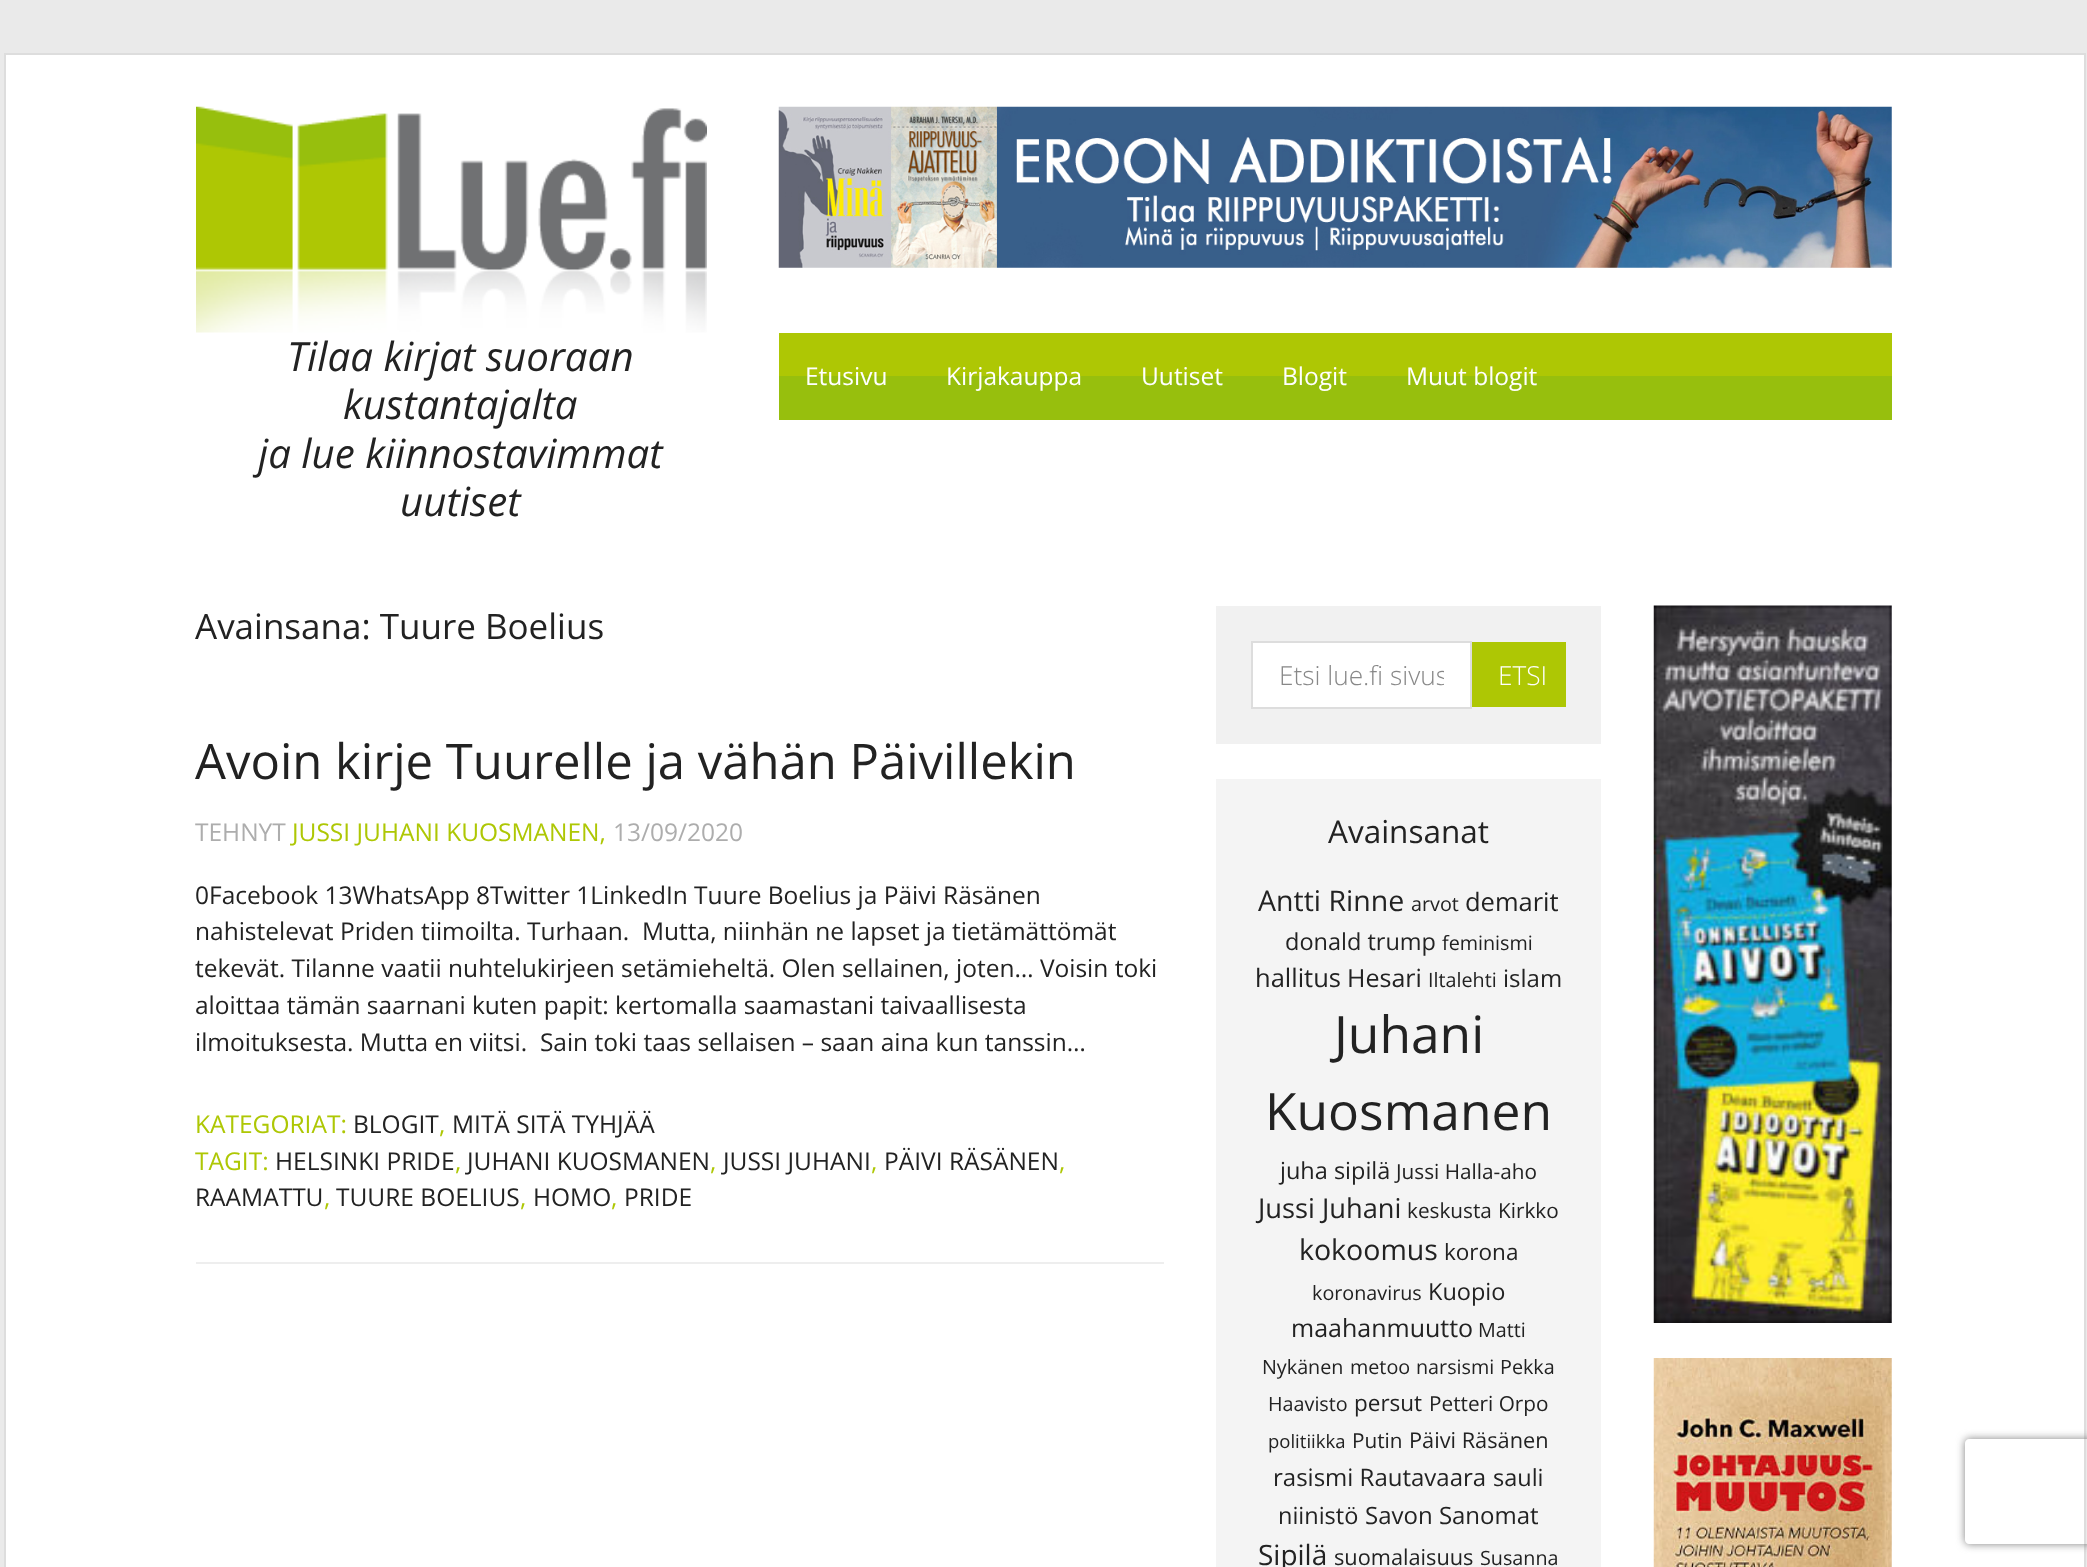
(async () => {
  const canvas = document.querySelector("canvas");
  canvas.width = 2087;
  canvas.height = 1567;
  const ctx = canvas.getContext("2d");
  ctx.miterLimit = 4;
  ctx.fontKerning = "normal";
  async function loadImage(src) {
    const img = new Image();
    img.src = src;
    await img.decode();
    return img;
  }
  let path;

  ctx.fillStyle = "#eaeaea";
  ctx.fillRect(0, 0, 2087, 1567);
  ctx.fillStyle = "#ffffff";
  ctx.beginPath();
  ctx.rect(5, 54, 2080, 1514);
  ctx.fill();
  ctx.strokeStyle = "#dddddd";
  ctx.lineWidth = 2;
  ctx.stroke();
  ctx.drawImage(await loadImage("img/1.png"), 196, 106, 511, 227);
  ctx.drawImage(await loadImage("img/2.png"), 778, 106, 1114, 162);
  for (const [x, y, w, h, color] of [
    [779, 333, 1113, 43, "#aec704"],
    [779, 376, 1113, 44, "#97bf0d"],
    [196, 1262, 968, 2, "#eeeeee"],
    [1216, 606, 385, 138, "#f1f1f1"],
  ]) {
    ctx.fillStyle = color;
    ctx.fillRect(x, y, w, h);
  }
  ctx.fillStyle = "#ffffff";
  ctx.beginPath();
  ctx.rect(1252, 642, 219, 66);
  ctx.fill();
  ctx.stroke();
  ctx.fillStyle = "#aec704";
  ctx.fillRect(1472, 642, 94, 65);
  ctx.fillStyle = "#f4f4f4";
  ctx.fillRect(1216, 779, 385, 788);
  ctx.drawImage(await loadImage("img/3.png"), 1653, 605, 239, 718);
  ctx.drawImage(await loadImage("img/4.png"), 1653, 1358, 239, 209);
  ctx.save();
  path = new Path2D("M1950 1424H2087V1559H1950ZM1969 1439H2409C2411 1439 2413 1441 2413 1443V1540C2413 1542 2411 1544 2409 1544H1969C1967 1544 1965 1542 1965 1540V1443C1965 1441 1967 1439 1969 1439Z");
  ctx.clip(path, "evenodd");
  ctx.fillStyle = "#808080";
  ctx.filter = "blur(4.5px)";
  ctx.beginPath();
  ctx.roundRect(1965, 1439, 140, 105, 4);
  ctx.fill();
  ctx.filter = "none";
  ctx.restore();
  ctx.font = "italic 40.25px Open Sans";
  ctx.fillStyle = "#222222";
  for (const [text, x, y] of [
    ["Tilaa kirjat suoraan", 287, 371],
    ["kustantajalta", 343, 419],
    ["ja lue kiinnostavimmat", 258, 468],
    ["uutiset", 400, 516],
  ]) {
    ctx.fillText(text, x, y);
  }
  ctx.font = "24.5px Open Sans";
  ctx.fillStyle = "#ffffff";
  for (const [text, x, y] of [
    ["Etusivu", 805, 385],
    ["Kirjakauppa", 946, 385],
    ["Uutiset", 1141, 385],
    ["Blogit", 1282, 385],
    ["Muut blogit", 1406, 385],
  ]) {
    ctx.fillText(text, x, y);
  }
  ctx.font = "35px Open Sans";
  ctx.fillStyle = "#222222";
  ctx.fillText("Avainsana: Tuure Boelius", 195, 639);
  ctx.font = "49px Open Sans";
  ctx.fillText("Avoin kirje Tuurelle ja vähän Päivillekin", 195, 779);
  ctx.font = "24.5px Open Sans";
  ctx.fillStyle = "#adadad";
  ctx.fillText("TEHNYT", 195, 841);
  ctx.fillStyle = "#aec704";
  ctx.fillText("JUSSI JUHANI KUOSMANEN,", 292, 841);
  ctx.fillStyle = "#adadad";
  ctx.fillText("13/09/2020", 613, 841);
  ctx.fillStyle = "#222222";
  for (const [text, x, y] of [
    ["0Facebook 13WhatsApp 8Twitter 1LinkedIn Tuure Boelius ja Päivi Räsänen", 195, 904],
    ["nahistelevat Priden tiimoilta. Turhaan.  Mutta, niinhän ne lapset ja tietämättömät", 195, 940],
    ["tekevät. Tilanne vaatii nuhtelukirjeen setämieheltä. Olen sellainen, joten… Voisin toki", 195, 977],
    ["aloittaa tämän saarnani kuten papit: kertomalla saamastani taivaallisesta", 195, 1014],
    ["ilmoituksesta. Mutta en viitsi.  Sain toki taas sellaisen – saan aina kun tanssin…", 195, 1051],
  ]) {
    ctx.fillText(text, x, y);
  }
  ctx.fillStyle = "#aec704";
  ctx.fillText("KATEGORIAT:", 195, 1133);
  ctx.fillStyle = "#222222";
  ctx.fillText("BLOGIT", 353, 1133);
  ctx.fillStyle = "#aec704";
  ctx.fillText(",", 439, 1133);
  ctx.fillStyle = "#222222";
  ctx.fillText("MITÄ SITÄ TYHJÄÄ", 452, 1133);
  ctx.fillStyle = "#aec704";
  ctx.fillText("TAGIT:", 195, 1170);
  ctx.fillStyle = "#222222";
  ctx.fillText("HELSINKI PRIDE", 275, 1170);
  ctx.fillStyle = "#aec704";
  ctx.fillText(",", 455, 1170);
  ctx.fillStyle = "#222222";
  ctx.fillText("JUHANI KUOSMANEN", 467, 1170);
  ctx.fillStyle = "#aec704";
  ctx.fillText(",", 710, 1170);
  ctx.fillStyle = "#222222";
  ctx.fillText("JUSSI JUHANI", 723, 1170);
  ctx.fillStyle = "#aec704";
  ctx.fillText(",", 871, 1170);
  ctx.fillStyle = "#222222";
  ctx.fillText("PÄIVI RÄSÄNEN", 884, 1170);
  ctx.fillStyle = "#aec704";
  ctx.fillText(",", 1059, 1170);
  ctx.fillStyle = "#222222";
  ctx.fillText("RAAMATTU", 195, 1206);
  ctx.fillStyle = "#aec704";
  ctx.fillText(",", 324, 1206);
  ctx.fillStyle = "#222222";
  ctx.fillText("TUURE BOELIUS", 336, 1206);
  ctx.fillStyle = "#aec704";
  ctx.fillText(",", 520, 1206);
  ctx.fillStyle = "#222222";
  ctx.fillText("HOMO", 533, 1206);
  ctx.fillStyle = "#aec704";
  ctx.fillText(",", 611, 1206);
  ctx.fillStyle = "#222222";
  ctx.fillText("PRIDE", 624, 1206);
  ctx.save();
  ctx.beginPath();
  ctx.rect(1279, 656, 165, 35);
  ctx.clip();
  ctx.font = "300 26.25px Open Sans";
  ctx.fillStyle = "#888888";
  ctx.fillText("Etsi lue.fi sivus", 1279, 685);
  ctx.restore();
  ctx.font = "300 26.25px Open Sans";
  ctx.fillStyle = "#ffffff";
  ctx.fillText("ETSI", 1498, 685);
  ctx.font = "31.5px Open Sans";
  ctx.fillStyle = "#222222";
  ctx.fillText("Avainsanat", 1328, 843);
  ctx.font = "28.5px Open Sans";
  ctx.fillText("Antti Rinne", 1258, 911);
  ctx.font = "19.75px Open Sans";
  ctx.fillText("arvot", 1411, 911);
  ctx.font = "25.5px Open Sans";
  ctx.fillText("demarit", 1465, 911);
  ctx.font = "23.5px Open Sans";
  ctx.fillText("donald trump", 1285, 950);
  ctx.font = "19.75px Open Sans";
  ctx.fillText("feminismi", 1442, 950);
  ctx.font = "25.5px Open Sans";
  ctx.fillText("hallitus", 1255, 987);
  ctx.font = "25px Open Sans";
  ctx.fillText("Hesari", 1347, 987);
  ctx.font = "19.75px Open Sans";
  ctx.fillText("Iltalehti", 1428, 987);
  ctx.font = "24px Open Sans";
  ctx.fillText("islam", 1503, 987);
  ctx.font = "51.5px Open Sans";
  ctx.fillText("Juhani", 1334, 1053);
  ctx.fillText("Kuosmanen", 1265, 1130);
  ctx.font = "23.5px Open Sans";
  ctx.fillText("juha sipilä", 1280, 1179);
  ctx.font = "20.75px Open Sans";
  ctx.fillText("Jussi Halla-aho", 1396, 1179);
  ctx.font = "27.25px Open Sans";
  ctx.fillText("Jussi Juhani", 1258, 1218);
  ctx.font = "20.75px Open Sans";
  ctx.fillText("keskusta", 1407, 1218);
  ctx.fillText("Kirkko", 1498, 1218);
  ctx.font = "28.5px Open Sans";
  ctx.fillText("kokoomus", 1299, 1260);
  ctx.font = "22.5px Open Sans";
  ctx.fillText("korona", 1444, 1260);
  ctx.font = "19.75px Open Sans";
  ctx.fillText("koronavirus", 1312, 1300);
  ctx.font = "23.5px Open Sans";
  ctx.fillText("Kuopio", 1428, 1300);
  ctx.font = "25px Open Sans";
  ctx.fillText("maahanmuutto", 1291, 1337);
  ctx.font = "19.75px Open Sans";
  for (const [text, x, y] of [
    ["Matti", 1478, 1337],
    ["Nykänen", 1262, 1374],
    ["metoo", 1350, 1374],
    ["narsismi", 1416, 1374],
    ["Pekka", 1500, 1374],
    ["Haavisto", 1268, 1411],
  ]) {
    ctx.fillText(text, x, y);
  }
  ctx.font = "22.5px Open Sans";
  ctx.fillText("persut", 1354, 1411);
  ctx.font = "20.75px Open Sans";
  ctx.fillText("Petteri Orpo", 1429, 1411);
  ctx.font = "18.5px Open Sans";
  ctx.fillText("politiikka", 1268, 1448);
  ctx.font = "20.75px Open Sans";
  ctx.fillText("Putin", 1352, 1448);
  ctx.font = "21.75px Open Sans";
  ctx.fillText("Päivi Räsänen", 1409, 1448);
  ctx.font = "24px Open Sans";
  ctx.fillText("rasismi Rautavaara", 1273, 1486);
  ctx.font = "23.5px Open Sans";
  ctx.fillText("sauli", 1493, 1486);
  ctx.fillText("niinistö", 1278, 1524);
  ctx.font = "24px Open Sans";
  ctx.fillText("Savon Sanomat", 1365, 1524);
  ctx.font = "28px Open Sans";
  ctx.fillText("Sipilä", 1258, 1565);
  ctx.font = "21.75px Open Sans";
  ctx.fillText("suomalaisuus", 1334, 1565);
  ctx.font = "19.75px Open Sans";
  ctx.fillText("Susanna", 1480, 1565);
})();
